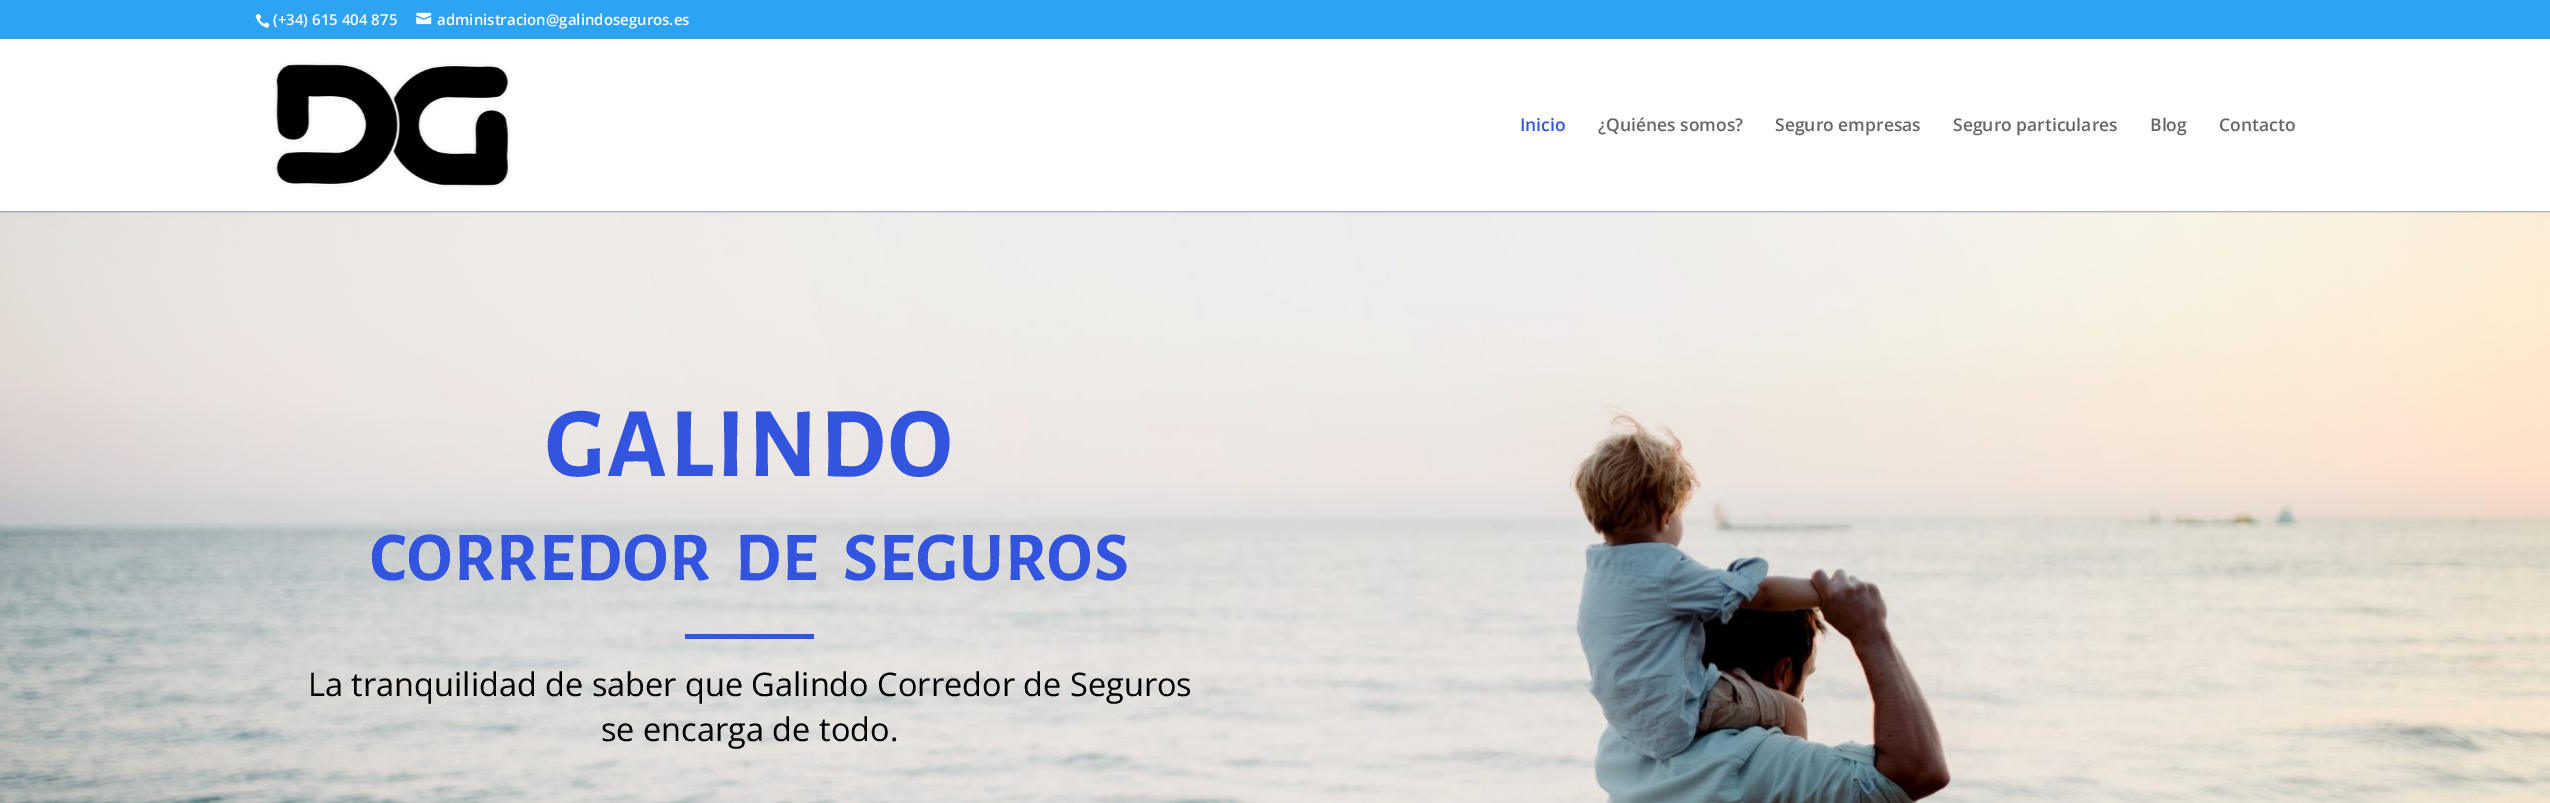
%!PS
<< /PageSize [2550 803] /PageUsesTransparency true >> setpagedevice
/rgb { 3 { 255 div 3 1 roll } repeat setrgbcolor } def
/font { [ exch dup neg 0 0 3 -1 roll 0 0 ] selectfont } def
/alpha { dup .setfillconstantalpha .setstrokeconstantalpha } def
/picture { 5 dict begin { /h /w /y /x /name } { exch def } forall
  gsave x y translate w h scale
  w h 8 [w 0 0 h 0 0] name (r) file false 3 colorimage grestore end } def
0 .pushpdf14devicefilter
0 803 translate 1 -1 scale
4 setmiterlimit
255 255 255 rgb
0 0 2550 803 rectfill
46 163 242 rgb
0 0 2550 39 rectfill
(img/1.rgb) 255 14 15 14 picture
(img/2.rgb) 416 12 16 13 picture
(img/4.rgb) 0 211 2550 592 picture
0.1 alpha
0 0 0 rgb
0 211 2550 2 rectfill
1 alpha
(img/3.rgb) 274 62 236 126 picture
50 84 223 rgb
685 634 129 5 rectfill
/OpenSans-SemiBold 15 font
255 255 255 rgb
273 25 moveto (\(+34\) 615 404 875) show
437 25 moveto (administracion@galindoseguros.es) show
/OpenSans-SemiBold 17.5 font
50 84 223 rgb
1520 131 moveto (Inicio) show
102 102 102 rgb
[
  [(¿Quiénes somos?) 1598 131]
  [(Seguro empresas) 1775 131]
  [(Seguro particulares) 1953 131]
  [(Blog) 2150 131]
  [(Contacto) 2219 131]
] { aload pop moveto show } forall
/AlegreyaSans-Bold 100 font
50 84 223 rgb
545 476 moveto 2.5 0 (GALINDO) ashow
/AlegreyaSans-Bold 70 font
370 580 moveto 1.25 0 (CORREDOR  DE  SEGUROS) ashow
/OpenSans-Regular 32.5 font
0 0 0 rgb
308 696 moveto (La tranquilidad de saber que Galindo Corredor de Seguros) show
601 741 moveto (se encarga de todo.) show
.poppdf14devicefilter showpage
